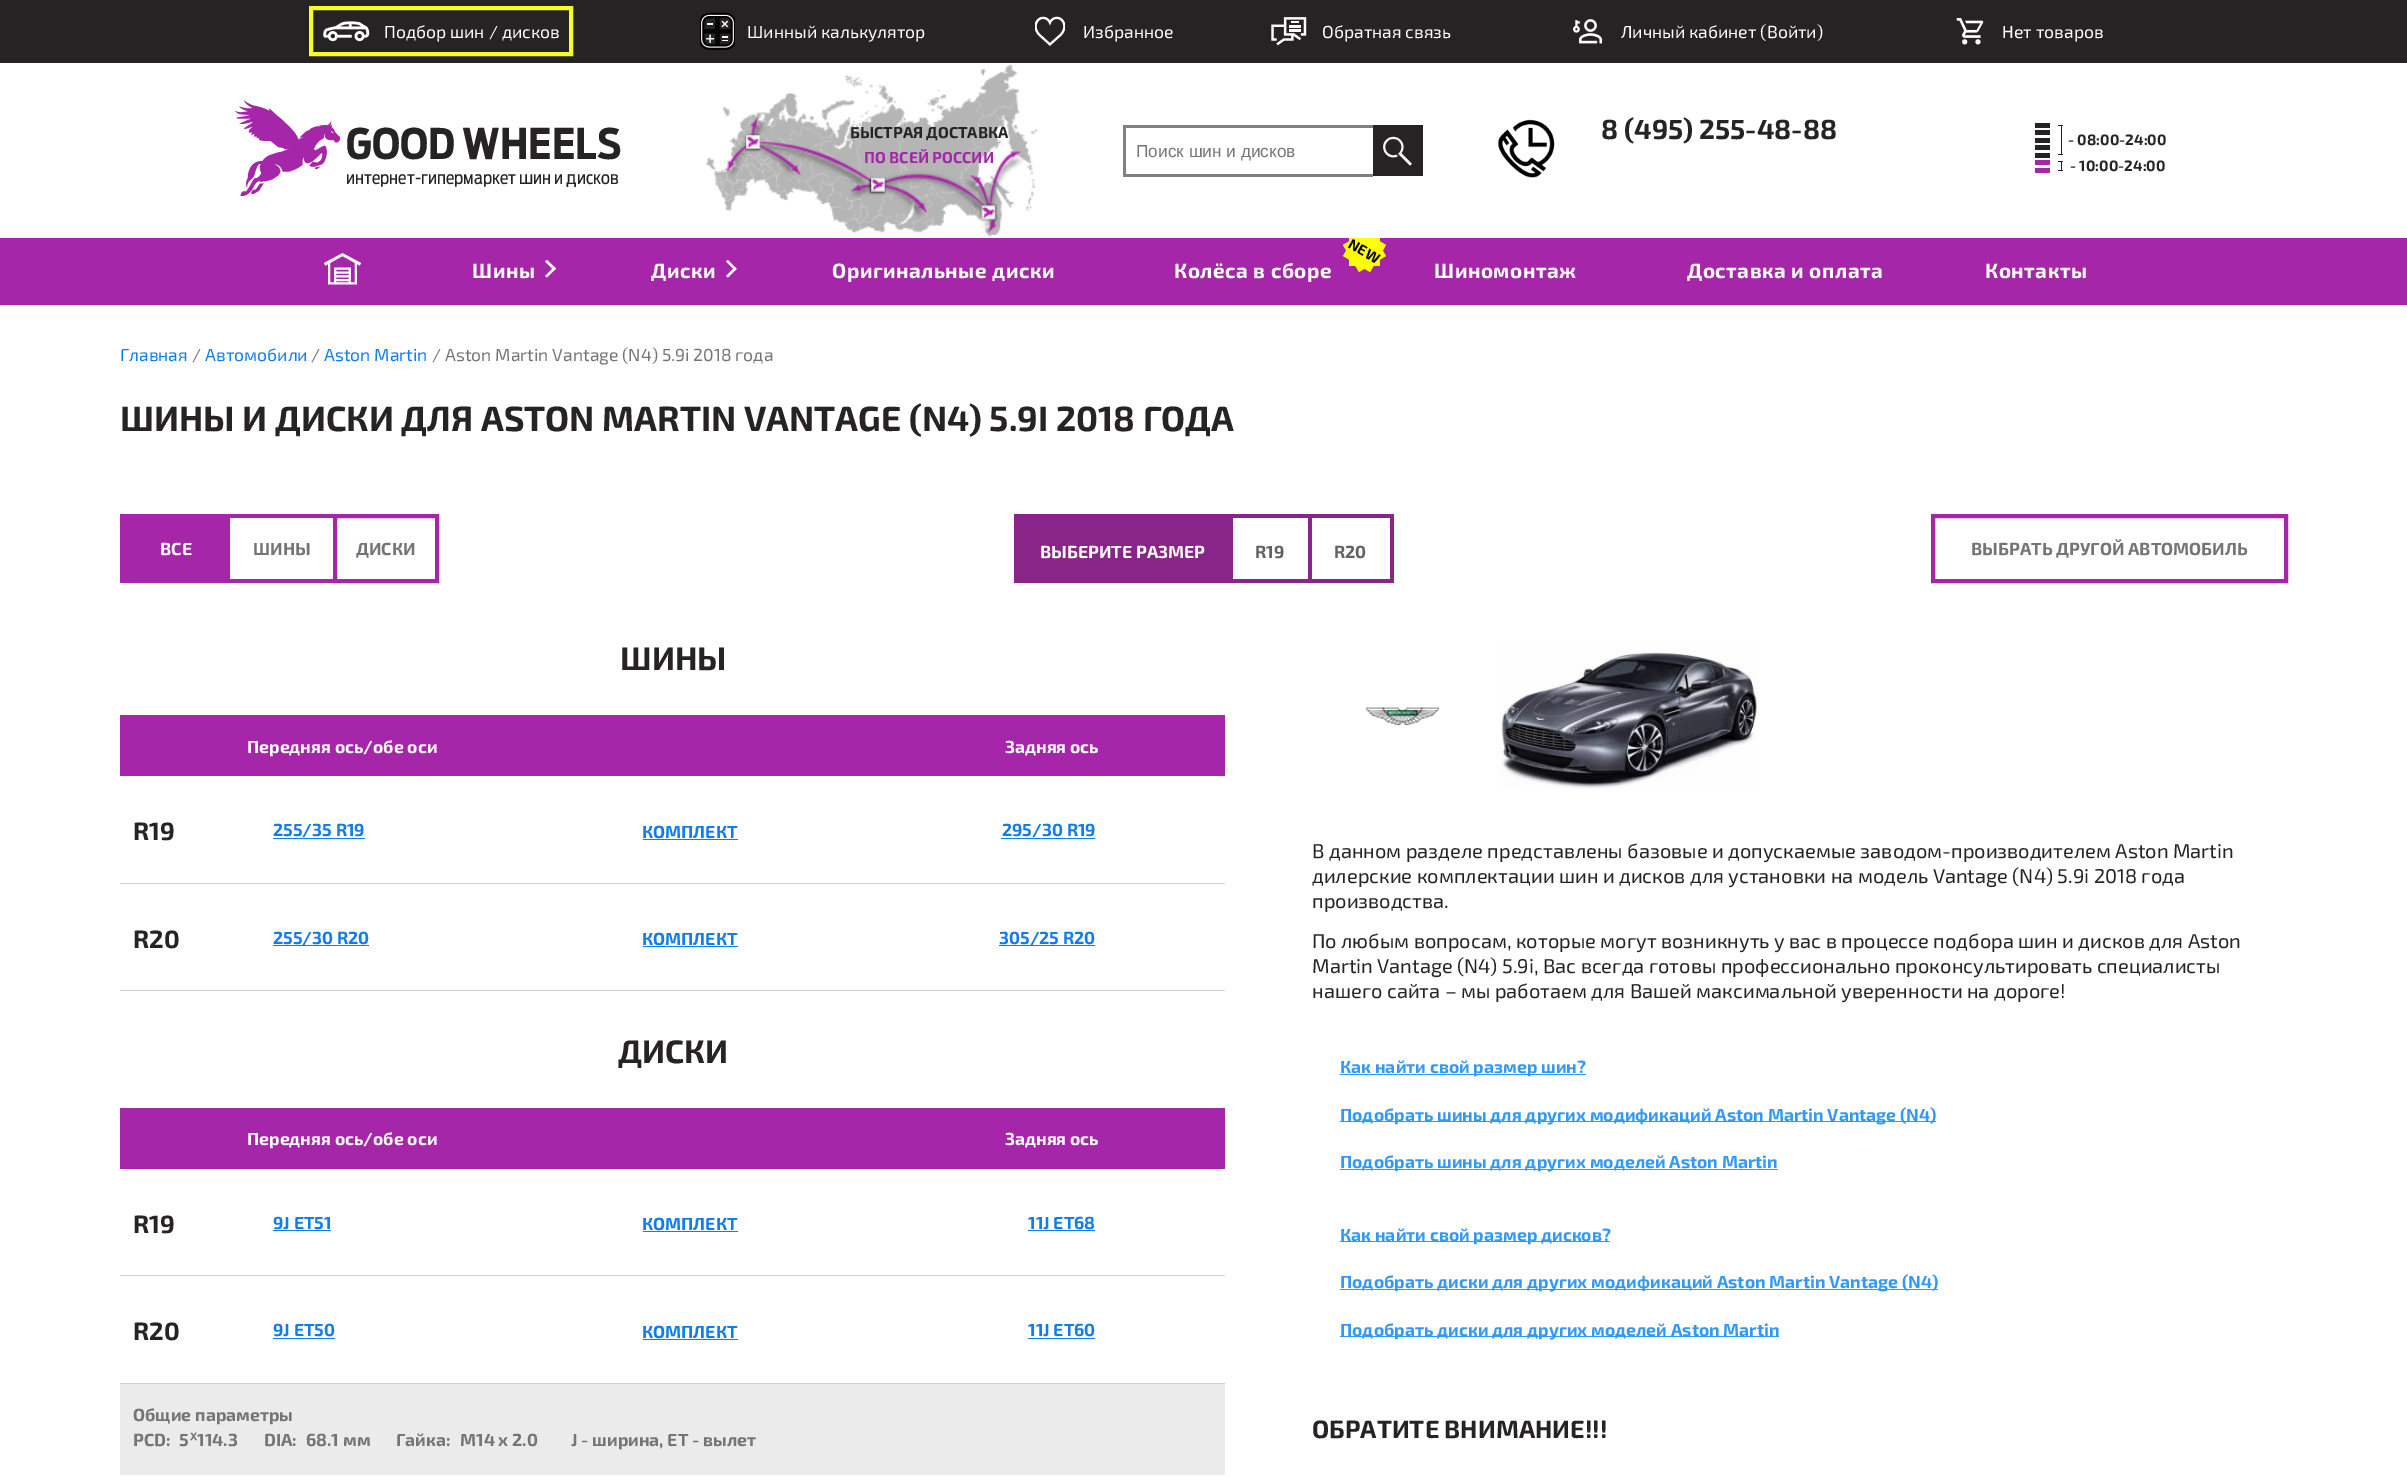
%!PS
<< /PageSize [2407 1477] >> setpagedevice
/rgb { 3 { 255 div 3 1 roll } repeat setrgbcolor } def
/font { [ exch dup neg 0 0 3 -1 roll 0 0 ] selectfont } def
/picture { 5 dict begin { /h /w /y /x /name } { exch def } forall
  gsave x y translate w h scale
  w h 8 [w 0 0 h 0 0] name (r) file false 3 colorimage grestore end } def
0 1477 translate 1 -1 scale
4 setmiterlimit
255 255 255 rgb
0 0 2407 1477 rectfill
38 35 36 rgb
0 0 2407 63 rectfill
247 255 35 rgb
4 setlinewidth
311 8 260 46 rectstroke
(img/1.rgb) 323 21 47 21 picture
(img/2.rgb) 700 12 35 38 picture
(img/3.rgb) 1035 16 30 30 picture
(img/4.rgb) 1271 17 36 29 picture
(img/5.rgb) 1573 19 29 25 picture
(img/6.rgb) 1956 18 28 27 picture
(img/7.rgb) 235 100 105 96 picture
(img/8.rgb) 705 64 333 173 picture
[
  [1123 125 250 3 128 128 128]
  [1123 174 250 3 128 128 128]
  [1123 125 3 51 128 128 128]
  [1373 125 50 51 38 35 36]
] { aload pop rgb rectfill } forall
(img/9.rgb) 1383 136 29 30 picture
(img/10.rgb) 1497 119 58 59 picture
[
  [2035 123 15 5 38 35 36]
  [2035 130 15 5 38 35 36]
  [2035 138 15 5 38 35 36]
  [2035 145 15 5 38 35 36]
  [2035 153 15 5 38 35 36]
  [2035 160 15 5 166 38 170]
  [2035 168 15 5 166 38 170]
  [2058 125 5 1 38 35 36]
  [2061 125 1 30 38 35 36]
  [2058 154 5 1 38 35 36]
  [2058 161 5 1 38 35 36]
  [2061 161 1 10 38 35 36]
  [2058 170 5 1 38 35 36]
  [0 238 2407 67 166 38 170]
] { aload pop rgb rectfill } forall
(img/11.rgb) 324 253 37 32 picture
255 255 255 rgb
545 261.5 moveto 547 260 lineto 556 268.5 lineto 554 270.5 lineto closepath fill
545 276 moveto 554 267 lineto 556 268.5 lineto 547 277.5 lineto closepath fill
726 261.5 moveto 728 260 lineto 736.5 269 lineto 735 270.5 lineto closepath fill
726 276 moveto 735 267 lineto 736.5 269 lineto 728 277.5 lineto closepath fill
255 255 0 rgb
1349 238 31 28 rectfill
gsave
0 238 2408 67 rectclip
1370 229 moveto 1386 256 lineto 1359 272 lineto 1343 245 lineto closepath fill
1359 229 moveto 1386 245 lineto 1370 272 lineto 1343 256 lineto closepath fill
grestore
[
  [120 514 106 69 166 38 170]
  [226 514 107 4 166 38 170]
  [226 579 107 4 166 38 170]
  [226 514 4 69 166 38 170]
] { aload pop rgb rectfill } forall
335 516 102 65 rectstroke
[
  [1014 514 219 69 137 36 136]
  [1233 514 78 4 137 36 136]
  [1308 514 4 69 137 36 136]
  [1233 579 78 4 137 36 136]
  [1311 514 83 4 137 36 136]
  [1390 514 4 69 137 36 136]
  [1311 579 83 4 137 36 136]
] { aload pop rgb rectfill } forall
166 38 170 rgb
1933 516 353 65 rectstroke
[
  [120 715 1105 61 166 38 170]
  [120 883 1105 1 210 210 210]
  [273 838 92 1 15 124 240]
  [1001 838 94 1 15 124 240]
  [643 839 95 1 15 124 240]
  [120 990 1105 1 210 210 210]
  [273 945 96 1 15 124 240]
  [999 945 96 1 15 124 240]
  [643 946 95 1 15 124 240]
  [120 1108 1105 61 166 38 170]
  [120 1275 1105 1 210 210 210]
  [273 1230 58 1 15 124 240]
  [1028 1230 67 1 15 124 240]
  [643 1231 95 1 15 124 240]
  [120 1383 1105 1 210 210 210]
  [273 1338 62 1 15 124 240]
  [1028 1338 67 1 15 124 240]
  [643 1339 95 1 15 124 240]
  [120 1384 1105 91 235 235 235]
] { aload pop rgb rectfill } forall
(img/12.rgb) 1366 707 73 18 picture
(img/13.rgb) 1496 643 263 146 picture
[
  [1340 1074 246 1 48 153 251]
  [1340 1121 596 1 48 153 251]
  [1340 1169 438 1 48 153 251]
  [1340 1241 270 1 48 153 251]
  [1340 1289 598 1 48 153 251]
  [1340 1336 439 1 48 153 251]
] { aload pop rgb rectfill } forall
/Exo2-Regular 17.5 font
255 255 255 rgb
[
  [(Подбор шин / дисков) 384 38]
  [(Шинный калькулятор) 747 38]
  [(Избранное) 1083 38]
  [(Обратная связь) 1322 38]
  [(Личный кабинет \(Войти\)) 1621 38]
  [(Нет товаров) 2002 38]
] { aload pop moveto show } forall
/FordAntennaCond-Bold 42 font
38 35 36 rgb
346 159 moveto (GOOD WHEELS) show
/FordAntennaCond-Regular 17.5 font
346 184 moveto (интернет-гипермаркет шин и дисков) show
/Exo2-Bold 15.75 font
850 138 moveto (БЫСТРАЯ ДОСТАВКА) show
166 38 170 rgb
864 163 moveto (ПО ВСЕЙ РОССИИ) show
/LiberationSans-Regular 17.25 font
117 117 117 rgb
1136 157 moveto (Поиск шин и дисков) show
/Exo2-Bold 27.5 font
38 35 36 rgb
1601 139 moveto (8 \(495\) 255-48-88) show
/Exo2-Bold 15 font
2068 145 moveto (- 08:00-24:00) show
2070 171 moveto (- 10:00-24:00) show
/Exo2-Bold 20.6 font
255 255 255 rgb
472 278 moveto 0.5 0 (Шины) ashow
651 278 moveto 0.5 0 (Диски) ashow
832 278 moveto 0.5 0 (Оригинальные диски) ashow
/Exo2-Bold 14.5 font
0 0 0 rgb
gsave 1347 247 translate 30 rotate 0 0 moveto 0.5 0 (NEW) ashow grestore
/Exo2-Bold 20.6 font
255 255 255 rgb
1174 278 moveto 0.5 0 (Колёса в сборе) ashow
1434 278 moveto 0.5 0 (Шиномонтаж) ashow
1687 278 moveto 0.5 0 (Доставка и оплата) ashow
1985 278 moveto 0.5 0 (Контакты) ashow
/Exo2-Regular 17.5 font
15 124 240 rgb
120 361 moveto (Главная) show
117 117 117 rgb
192 361 moveto (/) show
15 124 240 rgb
205 361 moveto (Автомобили) show
117 117 117 rgb
311 361 moveto (/) show
15 124 240 rgb
324 361 moveto (Aston Martin) show
117 117 117 rgb
432 361 moveto (/ Aston Martin Vantage \(N4\) 5.9i 2018 года) show
/Exo2-Bold 35 font
38 35 36 rgb
120 431 moveto (ШИНЫ И ДИСКИ ДЛЯ ASTON MARTIN VANTAGE \(N4\) 5.9I 2018 ГОДА) show
/Exo2-Bold 17.5 font
255 255 255 rgb
160 555 moveto (ВСЕ) show
117 117 117 rgb
253 555 moveto (ШИНЫ) show
356 555 moveto (ДИСКИ) show
255 255 255 rgb
1040 558 moveto (ВЫБЕРИТЕ РАЗМЕР) show
97 97 97 rgb
1255 558 moveto (R19) show
1334 558 moveto (R20) show
117 117 117 rgb
1971 555 moveto (ВЫБРАТЬ ДРУГОЙ АВТОМОБИЛЬ) show
/Exo2-Bold 32.5 font
38 35 36 rgb
620 670 moveto (ШИНЫ) show
/Exo2-Bold 17.5 font
255 255 255 rgb
247 753 moveto (Передняя ось/обе оси) show
1005 753 moveto (Задняя ось) show
/Exo2-Bold 25 font
38 35 36 rgb
133 840 moveto (R19) show
/Exo2-Bold 17.5 font
15 124 240 rgb
[
  [(255/35 R19) 273 836]
  [(295/30 R19) 1002 836]
  [(КОМПЛЕКТ) 642 838]
] { aload pop moveto show } forall
/Exo2-Bold 25 font
38 35 36 rgb
133 948 moveto (R20) show
/Exo2-Bold 17.5 font
15 124 240 rgb
[
  [(255/30 R20) 273 944]
  [(305/25 R20) 999 944]
  [(КОМПЛЕКТ) 642 945]
] { aload pop moveto show } forall
/Exo2-Bold 32.5 font
38 35 36 rgb
618 1063 moveto (ДИСКИ) show
/Exo2-Bold 17.5 font
255 255 255 rgb
247 1145 moveto (Передняя ось/обе оси) show
1005 1145 moveto (Задняя ось) show
/Exo2-Bold 25 font
38 35 36 rgb
133 1233 moveto (R19) show
/Exo2-Bold 17.5 font
15 124 240 rgb
[
  [(9J ET51) 273 1229]
  [(11J ET68) 1028 1229]
  [(КОМПЛЕКТ) 642 1230]
] { aload pop moveto show } forall
/Exo2-Bold 25 font
38 35 36 rgb
133 1340 moveto (R20) show
/Exo2-Bold 17.5 font
15 124 240 rgb
[
  [(9J ET50) 273 1336]
  [(11J ET60) 1028 1336]
  [(КОМПЛЕКТ) 642 1338]
] { aload pop moveto show } forall
117 117 117 rgb
[
  [(Общие параметры) 133 1421]
  [(PCD:) 133 1446]
  [(5) 179 1446]
] { aload pop moveto show } forall
/DejaVuSans-Bold 17.5 font
189 1446 moveto (ᕁ) show
/Exo2-Bold 17.5 font
[
  [(114.3) 197 1446]
  [(DIA:) 264 1446]
  [(68.1 мм) 306 1446]
  [(Гайка:) 396 1446]
  [(M14 x 2.0) 460 1446]
  [(J - ширина, ET - вылет) 571 1446]
] { aload pop moveto show } forall
/Exo2-Regular 20 font
38 35 36 rgb
[
  [(В данном разделе представлены базовые и допускаемые заводом-производителем Aston Martin) 1312 858]
  [(дилерские комплектации шин и дисков для установки на модель Vantage \(N4\) 5.9i 2018 года) 1312 883]
  [(производства.) 1312 908]
  [(По любым вопросам, которые могут возникнуть у вас в процессе подбора шин и дисков для Aston) 1312 948]
  [(Martin Vantage \(N4\) 5.9i, Вас всегда готовы профессионально проконсультировать специалисты) 1312 973]
  [(нашего сайта – мы работаем для Вашей максимальной уверенности на дороге!) 1312 998]
] { aload pop moveto show } forall
/Exo2-Bold 17.5 font
48 153 251 rgb
[
  [(Как найти свой размер шин?) 1340 1073]
  [(Подобрать шины для других модификаций Aston Martin Vantage \(N4\)) 1340 1121]
  [(Подобрать шины для других моделей Aston Martin) 1340 1168]
  [(Как найти свой размер дисков?) 1340 1241]
  [(Подобрать диски для других модификаций Aston Martin Vantage \(N4\)) 1340 1288]
  [(Подобрать диски для других моделей Aston Martin) 1340 1336]
] { aload pop moveto show } forall
/Exo2-Bold 25 font
38 35 36 rgb
1312 1438 moveto (ОБРАТИТЕ ВНИМАНИЕ!!!) show
showpage
